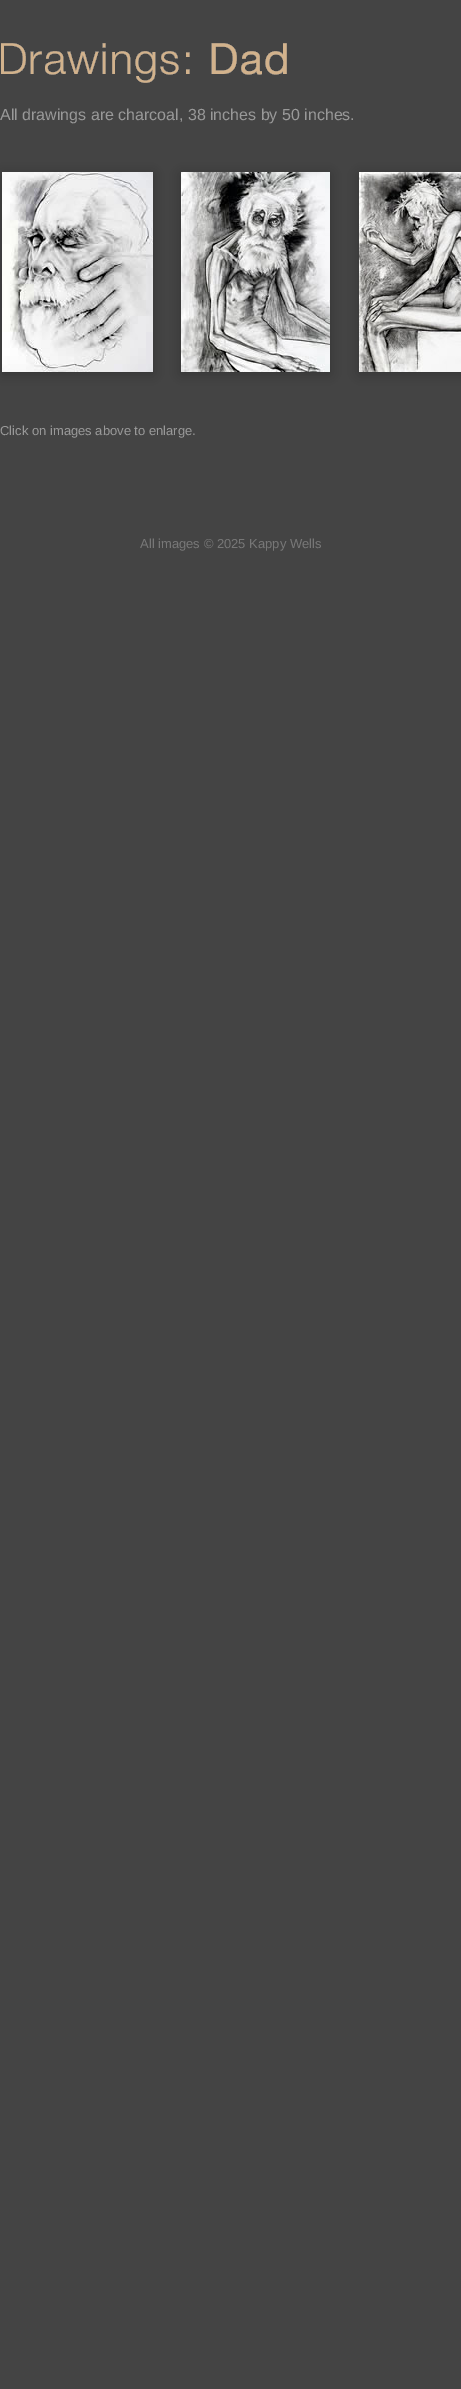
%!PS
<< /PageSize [461 2389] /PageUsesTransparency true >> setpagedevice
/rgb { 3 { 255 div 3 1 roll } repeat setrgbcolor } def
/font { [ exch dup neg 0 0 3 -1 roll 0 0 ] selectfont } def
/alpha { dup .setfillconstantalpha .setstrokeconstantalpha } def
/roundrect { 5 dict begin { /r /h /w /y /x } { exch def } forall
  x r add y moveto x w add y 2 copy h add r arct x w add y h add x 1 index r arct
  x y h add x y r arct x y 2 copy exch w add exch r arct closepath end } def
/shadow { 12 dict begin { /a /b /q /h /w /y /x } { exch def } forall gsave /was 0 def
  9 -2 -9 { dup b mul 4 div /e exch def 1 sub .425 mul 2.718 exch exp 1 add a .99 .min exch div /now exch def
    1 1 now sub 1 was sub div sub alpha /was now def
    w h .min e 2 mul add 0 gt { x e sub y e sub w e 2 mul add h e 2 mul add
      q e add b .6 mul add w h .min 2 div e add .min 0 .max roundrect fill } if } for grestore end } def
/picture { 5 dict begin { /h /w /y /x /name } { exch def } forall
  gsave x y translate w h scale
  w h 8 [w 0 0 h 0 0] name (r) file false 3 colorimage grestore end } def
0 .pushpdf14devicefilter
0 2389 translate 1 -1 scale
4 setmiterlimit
68 68 68 rgb
0 0 461 2389 rectfill
(img/1.rgb) 1 43 286 40 picture
51 51 51 rgb
2 174 151 200 0 5.5 1 shadow
181 174 149 200 0 5.5 1 shadow
359 174 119 200 0 5.5 1 shadow
(img/2.rgb) 2 172 151 200 picture
(img/3.rgb) 181 172 149 200 picture
(img/4.rgb) 359 172 102 200 picture
/LiberationSans-Regular 16 font
153 153 153 rgb
0 120 moveto (All drawings are charcoal, 38 inches by 50 inches.) show
/LiberationSans-Regular 13 font
0 435 moveto (Click on images above to enlarge.) show
119 119 119 rgb
140 548 moveto (All images © 2025 Kappy Wells) show
.poppdf14devicefilter showpage
